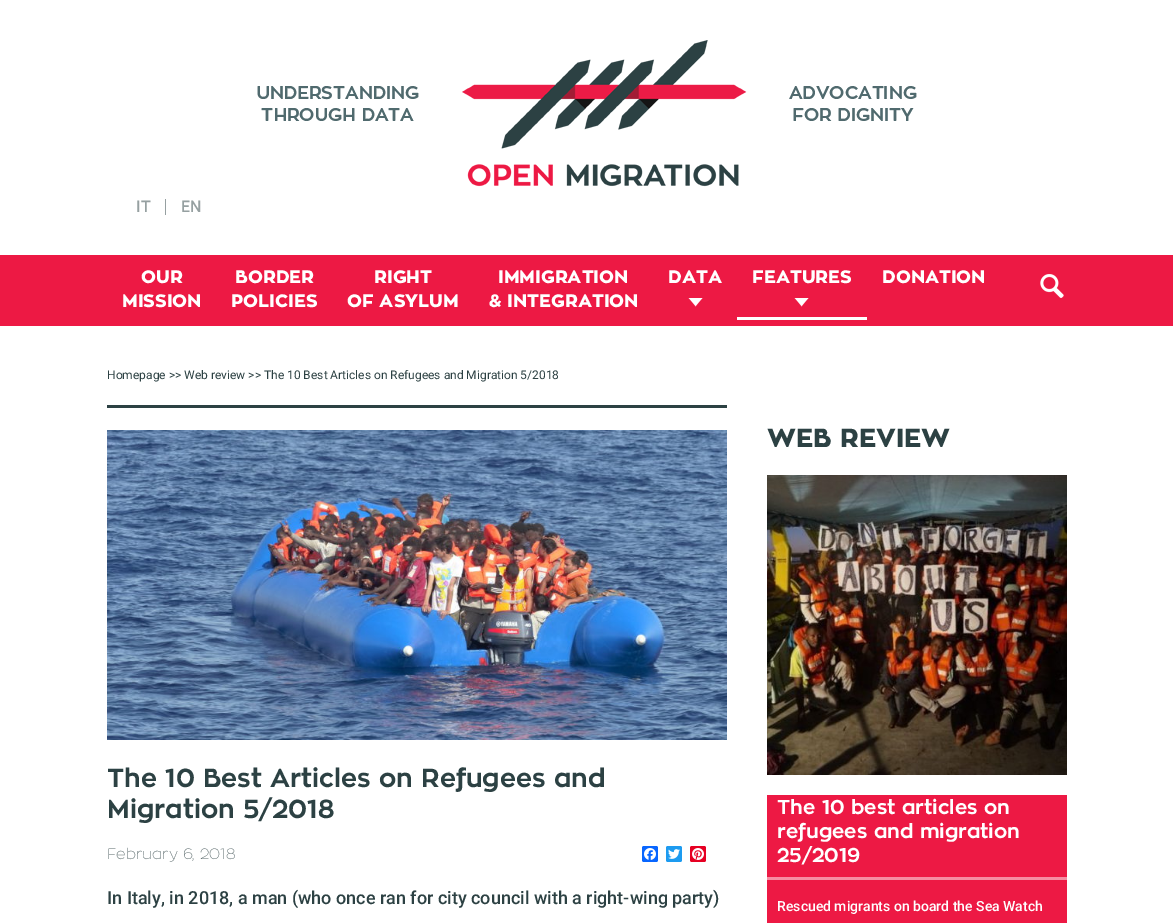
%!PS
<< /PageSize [1173 923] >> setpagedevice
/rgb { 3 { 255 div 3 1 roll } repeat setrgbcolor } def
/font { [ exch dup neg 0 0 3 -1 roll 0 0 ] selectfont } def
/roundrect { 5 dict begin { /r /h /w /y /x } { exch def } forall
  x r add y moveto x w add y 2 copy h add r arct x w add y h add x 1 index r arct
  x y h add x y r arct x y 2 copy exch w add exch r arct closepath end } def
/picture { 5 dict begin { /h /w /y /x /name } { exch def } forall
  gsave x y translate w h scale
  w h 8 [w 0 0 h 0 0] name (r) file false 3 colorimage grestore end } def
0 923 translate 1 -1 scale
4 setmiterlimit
255 255 255 rgb
0 0 1173 923 rectfill
(img/1.rgb) 257 40 660 147 picture
150 160 161 rgb
165 199 1 16 rectfill
237 25 68 rgb
0 255 1173 71 rectfill
(img/2.rgb) 688 298 15 9 picture
255 255 255 rgb
737 317 130 3 rectfill
(img/2.rgb) 794 298 15 9 picture
(img/3.rgb) 1040 274 24 24 picture
44 65 67 rgb
107 405 620 3 rectfill
(img/4.rgb) 107 430 620 310 picture
8 102 255 rgb
642 846 16 16 2 roundrect fill
(img/5.rgb) 644 848 12 12 picture
29 155 240 rgb
666 846 16 16 2 roundrect fill
(img/6.rgb) 668 849 12 10 picture
230 0 35 rgb
690 846 16 16 2 roundrect fill
(img/7.rgb) 692 848 12 12 picture
(img/8.rgb) 767 475 300 300 picture
237 25 68 rgb
767 795 300 128 rectfill
246 140 162 rgb
767 877 300 3 rectfill
/Roboto-Medium 16 font
150 160 161 rgb
136 212 moveto (IT) show
181 212 moveto (EN) show
/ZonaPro-ExtraBold 18 font
255 255 255 rgb
[
  [(OUR) 141 283]
  [(MISSION) 122 307]
  [(BORDER) 235 283]
  [(POLICIES) 231 307]
  [(RIGHT) 374 283]
  [(OF ASYLUM) 347 307]
  [(IMMIGRATION) 498 283]
  [(& INTEGRATION) 489 307]
  [(DATA) 668 283]
  [(FEATURES) 752 283]
  [(DONATION) 882 283]
] { aload pop moveto show } forall
/Roboto-Regular 12 font
44 65 67 rgb
107 379 moveto (Homepage >> Web review >> The 10 Best Articles on Refugees and Migration 5/2018) show
/ZonaPro-Bold 26 font
107 787 moveto (The 10 Best Articles on Refugees and) show
107 818 moveto (Migration 5/2018) show
/ZonaPro-Thin 15 font
97 112 114 rgb
107 859 moveto (February 6, 2018) show
/Roboto-Medium 18 font
44 65 67 rgb
107 904 moveto (In Italy, in 2018, a man \(who once ran for city council with a right-wing party\)) show
/ZonaPro-ExtraBold 26 font
767 447 moveto (WEB REVIEW) show
/ZonaPro-Bold 20 font
255 255 255 rgb
[
  [(The 10 best articles on) 777 814]
  [(refugees and migration) 777 838]
  [(25/2019) 777 862]
] { aload pop moveto show } forall
/Roboto-Medium 14 font
777 911 moveto (Rescued migrants on board the Sea Watch) show
showpage
